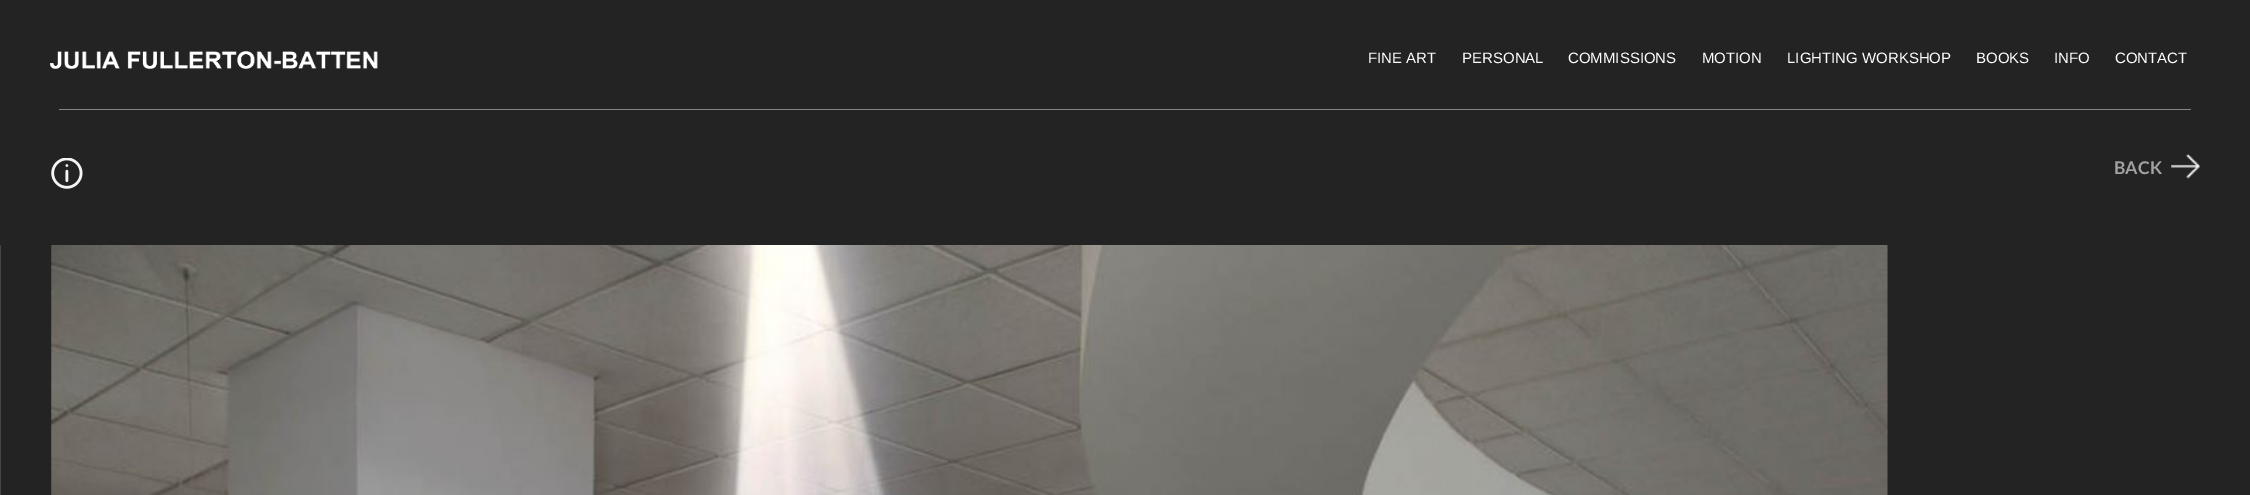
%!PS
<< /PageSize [2250 495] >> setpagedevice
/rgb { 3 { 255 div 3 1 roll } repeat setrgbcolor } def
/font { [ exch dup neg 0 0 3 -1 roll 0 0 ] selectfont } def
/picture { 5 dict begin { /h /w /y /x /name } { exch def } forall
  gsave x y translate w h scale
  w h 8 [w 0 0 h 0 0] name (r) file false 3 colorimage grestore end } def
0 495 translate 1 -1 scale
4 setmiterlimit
35 35 35 rgb
0 0 2250 495 rectfill
(img/1.rgb) 50 51 328 18 picture
132 132 132 rgb
59 109 2132 1 rectfill
(img/2.rgb) 2171 153 29 26 picture
68 68 68 rgb
0 245 1 250 rectfill
(img/3.rgb) 51 158 32 31 picture
(img/4.rgb) 51 245 1837 250 picture
/LiberationSans-Regular 15 font
255 255 255 rgb
[
  [(FINE ART) 1368 63]
  [(PERSONAL) 1462 63]
  [(COMMISSIONS) 1568 63]
  [(MOTION) 1702 63]
  [(LIGHTING WORKSHOP) 1787 63]
  [(BOOKS) 1976 63]
  [(INFO) 2054 63]
  [(CONTACT) 2115 63]
] { aload pop moveto show } forall
/Lato-Bold 17.5 font
161 161 161 rgb
2114 174 moveto (BACK) show
showpage
